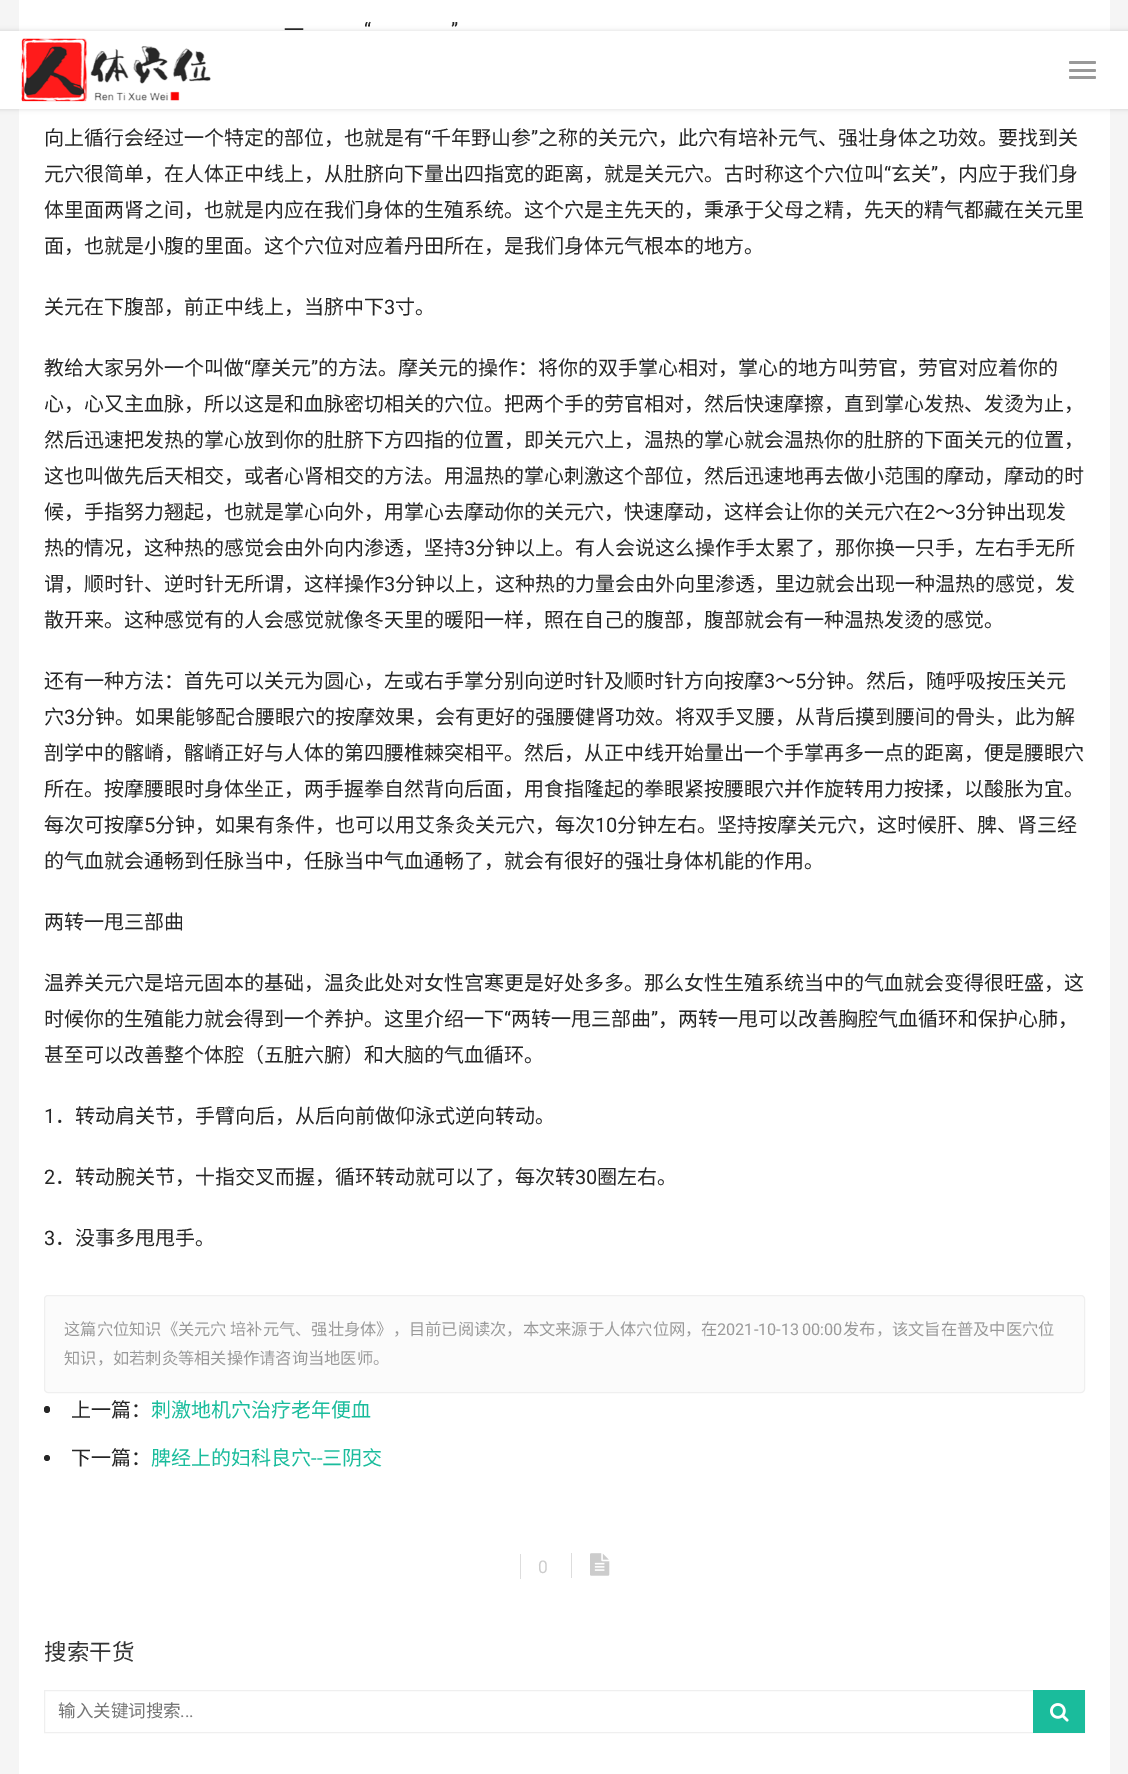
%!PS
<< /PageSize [1128 1774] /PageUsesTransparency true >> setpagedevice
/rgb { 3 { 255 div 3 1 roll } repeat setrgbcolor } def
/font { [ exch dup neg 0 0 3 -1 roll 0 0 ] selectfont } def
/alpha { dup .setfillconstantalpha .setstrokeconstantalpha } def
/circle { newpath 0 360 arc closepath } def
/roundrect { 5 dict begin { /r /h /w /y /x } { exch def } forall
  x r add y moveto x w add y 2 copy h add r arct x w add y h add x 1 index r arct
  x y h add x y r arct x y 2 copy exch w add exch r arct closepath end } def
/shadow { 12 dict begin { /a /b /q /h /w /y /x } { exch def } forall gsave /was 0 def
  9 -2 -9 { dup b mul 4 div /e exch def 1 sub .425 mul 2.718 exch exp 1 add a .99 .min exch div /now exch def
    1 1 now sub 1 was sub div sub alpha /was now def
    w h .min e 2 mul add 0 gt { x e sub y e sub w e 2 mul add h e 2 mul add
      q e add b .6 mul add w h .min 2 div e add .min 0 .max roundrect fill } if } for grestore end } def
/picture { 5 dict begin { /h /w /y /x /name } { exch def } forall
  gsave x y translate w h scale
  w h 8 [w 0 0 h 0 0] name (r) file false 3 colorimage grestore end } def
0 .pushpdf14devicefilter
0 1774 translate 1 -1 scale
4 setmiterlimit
245 245 245 rgb
0 0 1128 1774 rectfill
255 255 255 rgb
19 0 1091 1774 rectfill
251 251 251 rgb
44.5 1295.5 1040 97 3.5 roundrect gsave fill grestore
239 239 239 rgb
stroke
38 38 38 rgb
44 1406 6 7 3 roundrect fill
47 1458 3 circle fill
221 221 221 rgb
520 1554 1 25 rectfill
571 1553 1 25 rectfill
(img/1.rgb) 590 1553 20 23 picture
239 239 239 rgb
44.5 1690.5 1040 42 rectstroke
26 188 156 rgb
1033 1690 52 43 rectfill
(img/2.rgb) 1050 1703 19 19 picture
0 0 0 rgb
-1 30 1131 80 0 2 0.1 shadow
255 255 255 rgb
0 31 1128 78 rectfill
(img/3.rgb) 20 38 191 64 picture
153 153 153 rgb
1069 61 27 3 1.5 roundrect fill
1069 69 27 3 1.5 roundrect fill
1069 76 27 3 1.5 roundrect fill
/Roboto-Regular 20 font
38 38 38 rgb
364 37 moveto (“) show
451 37 moveto (”) show
/NotoSansCJKSC-Regular 20 font
284 37 moveto (一) show
44 145 moveto (向上循行会经过一个特定的部位，也就是有) show
/Roboto-Regular 20 font
424 145 moveto (“) show
/NotoSansCJKSC-Regular 20 font
431 145 moveto (千年野山参) show
/Roboto-Regular 20 font
531 145 moveto (”) show
/NotoSansCJKSC-Regular 20 font
538 145 moveto (之称的关元穴，此穴有培补元气、强壮身体之功效。要找到关) show
44 181 moveto (元穴很简单，在人体正中线上，从肚脐向下量出四指宽的距离，就是关元穴。古时称这个穴位叫) show
/Roboto-Regular 20 font
884 181 moveto (“) show
/NotoSansCJKSC-Regular 20 font
891 181 moveto (玄关) show
/Roboto-Regular 20 font
931 181 moveto (”) show
/NotoSansCJKSC-Regular 20 font
[
  [(，内应于我们身) 938 181]
  [(体里面两肾之间，也就是内应在我们身体的生殖系统。这个穴是主先天的，秉承于父母之精，先天的精气都藏在关元里) 44 217]
  [(面，也就是小腹的里面。这个穴位对应着丹田所在，是我们身体元气根本的地方。) 44 253]
  [(关元在下腹部，前正中线上，当脐中下) 44 314]
] { aload pop moveto show } forall
/Roboto-Regular 20 font
384 314 moveto (3) show
/NotoSansCJKSC-Regular 20 font
395 314 moveto (寸。) show
44 375 moveto (教给大家另外一个叫做) show
/Roboto-Regular 20 font
244 375 moveto (“) show
/NotoSansCJKSC-Regular 20 font
251 375 moveto (摩关元) show
/Roboto-Regular 20 font
311 375 moveto (”) show
/NotoSansCJKSC-Regular 20 font
[
  [(的方法。摩关元的操作：将你的双手掌心相对，掌心的地方叫劳官，劳官对应着你的) 318 375]
  [(心，心又主血脉，所以这是和血脉密切相关的穴位。把两个手的劳官相对，然后快速摩擦，直到掌心发热、发烫为止，) 44 411]
  [(然后迅速把发热的掌心放到你的肚脐下方四指的位置，即关元穴上，温热的掌心就会温热你的肚脐的下面关元的位置，) 44 447]
  [(这也叫做先后天相交，或者心肾相交的方法。用温热的掌心刺激这个部位，然后迅速地再去做小范围的摩动，摩动的时) 44 483]
  [(候，手指努力翘起，也就是掌心向外，用掌心去摩动你的关元穴，快速摩动，这样会让你的关元穴在) 44 519]
] { aload pop moveto show } forall
/Roboto-Regular 20 font
924 519 moveto (2) show
/NotoSansCJKSC-Regular 20 font
935 519 moveto (～) show
/Roboto-Regular 20 font
955 519 moveto (3) show
/NotoSansCJKSC-Regular 20 font
966 519 moveto (分钟出现发) show
44 555 moveto (热的情况，这种热的感觉会由外向内渗透，坚持) show
/Roboto-Regular 20 font
464 555 moveto (3) show
/NotoSansCJKSC-Regular 20 font
475 555 moveto (分钟以上。有人会说这么操作手太累了，那你换一只手，左右手无所) show
44 591 moveto (谓，顺时针、逆时针无所谓，这样操作) show
/Roboto-Regular 20 font
384 591 moveto (3) show
/NotoSansCJKSC-Regular 20 font
[
  [(分钟以上，这种热的力量会由外向里渗透，里边就会出现一种温热的感觉，发) 395 591]
  [(散开来。这种感觉有的人会感觉就像冬天里的暖阳一样，照在自己的腹部，腹部就会有一种温热发烫的感觉。) 44 627]
  [(还有一种方法：首先可以关元为圆心，左或右手掌分别向逆时针及顺时针方向按摩) 44 688]
] { aload pop moveto show } forall
/Roboto-Regular 20 font
764 688 moveto (3) show
/NotoSansCJKSC-Regular 20 font
775 688 moveto (～) show
/Roboto-Regular 20 font
795 688 moveto (5) show
/NotoSansCJKSC-Regular 20 font
806 688 moveto (分钟。然后，随呼吸按压关元) show
44 724 moveto (穴) show
/Roboto-Regular 20 font
64 724 moveto (3) show
/NotoSansCJKSC-Regular 20 font
[
  [(分钟。如果能够配合腰眼穴的按摩效果，会有更好的强腰健肾功效。将双手叉腰，从背后摸到腰间的骨头，此为解) 75 724]
  [(剖学中的髂嵴，髂嵴正好与人体的第四腰椎棘突相平。然后，从正中线开始量出一个手掌再多一点的距离，便是腰眼穴) 44 760]
  [(所在。按摩腰眼时身体坐正，两手握拳自然背向后面，用食指隆起的拳眼紧按腰眼穴并作旋转用力按揉，以酸胀为宜。) 44 796]
  [(每次可按摩) 44 832]
] { aload pop moveto show } forall
/Roboto-Regular 20 font
144 832 moveto (5) show
/NotoSansCJKSC-Regular 20 font
155 832 moveto (分钟，如果有条件，也可以用艾条灸关元穴，每次) show
/Roboto-Regular 20 font
595 832 moveto (10) show
/NotoSansCJKSC-Regular 20 font
[
  [(分钟左右。坚持按摩关元穴，这时候肝、脾、肾三经) 617 832]
  [(的气血就会通畅到任脉当中，任脉当中气血通畅了，就会有很好的强壮身体机能的作用。) 44 868]
  [(两转一甩三部曲) 44 929]
  [(温养关元穴是培元固本的基础，温灸此处对女性宫寒更是好处多多。那么女性生殖系统当中的气血就会变得很旺盛，这) 44 990]
  [(时候你的生殖能力就会得到一个养护。这里介绍一下) 44 1026]
] { aload pop moveto show } forall
/Roboto-Regular 20 font
504 1026 moveto (“) show
/NotoSansCJKSC-Regular 20 font
511 1026 moveto (两转一甩三部曲) show
/Roboto-Regular 20 font
651 1026 moveto (”) show
/NotoSansCJKSC-Regular 20 font
658 1026 moveto (，两转一甩可以改善胸腔气血循环和保护心肺，) show
44 1062 moveto (甚至可以改善整个体腔（五脏六腑）和大脑的气血循环。) show
/Roboto-Regular 20 font
44 1123 moveto (1) show
/NotoSansCJKSC-Regular 20 font
55 1123 moveto (．转动肩关节，手臂向后，从后向前做仰泳式逆向转动。) show
/Roboto-Regular 20 font
44 1184 moveto (2) show
/NotoSansCJKSC-Regular 20 font
55 1184 moveto (．转动腕关节，十指交叉而握，循环转动就可以了，每次转) show
/Roboto-Regular 20 font
575 1184 moveto (30) show
/NotoSansCJKSC-Regular 20 font
597 1184 moveto (圈左右。) show
/Roboto-Regular 20 font
44 1245 moveto (3) show
/NotoSansCJKSC-Regular 20 font
55 1245 moveto (．没事多甩甩手。) show
/NotoSansCJKSC-Regular 16.25 font
153 153 153 rgb
64 1335 moveto (这篇穴位知识《关元穴 培补元气、强壮身体》，目前已阅读) show
490 1335 moveto (次，本文来源于人体穴位网，在) show
/Roboto-Regular 16.25 font
717 1335 moveto -1 0 32 (2021-10-13 00:00) widthshow
/NotoSansCJKSC-Regular 16.25 font
843 1335 moveto (发布，该文旨在普及中医穴位) show
64 1364 moveto (知识，如若刺灸等相关操作请咨询当地医师。) show
/NotoSansCJKSC-Regular 20 font
38 38 38 rgb
71 1417 moveto (上一篇：) show
26 188 156 rgb
151 1417 moveto (刺激地机穴治疗老年便血) show
38 38 38 rgb
71 1465 moveto (下一篇：) show
26 188 156 rgb
151 1465 moveto (脾经上的妇科良穴) show
/Roboto-Regular 20 font
311 1465 moveto (--) show
/NotoSansCJKSC-Regular 20 font
322 1465 moveto (三阴交) show
/Roboto-Regular 17.5 font
204 204 204 rgb
538 1573 moveto (0) show
/NotoSansCJKSC-Regular 22.5 font
51 51 51 rgb
44 1660 moveto (搜索干货) show
/NotoSansCJKSC-Regular 17.5 font
117 117 117 rgb
58 1717 moveto (输入关键词搜索) show
/Roboto-Regular 17.5 font
180 1717 moveto (...) show
.poppdf14devicefilter showpage
